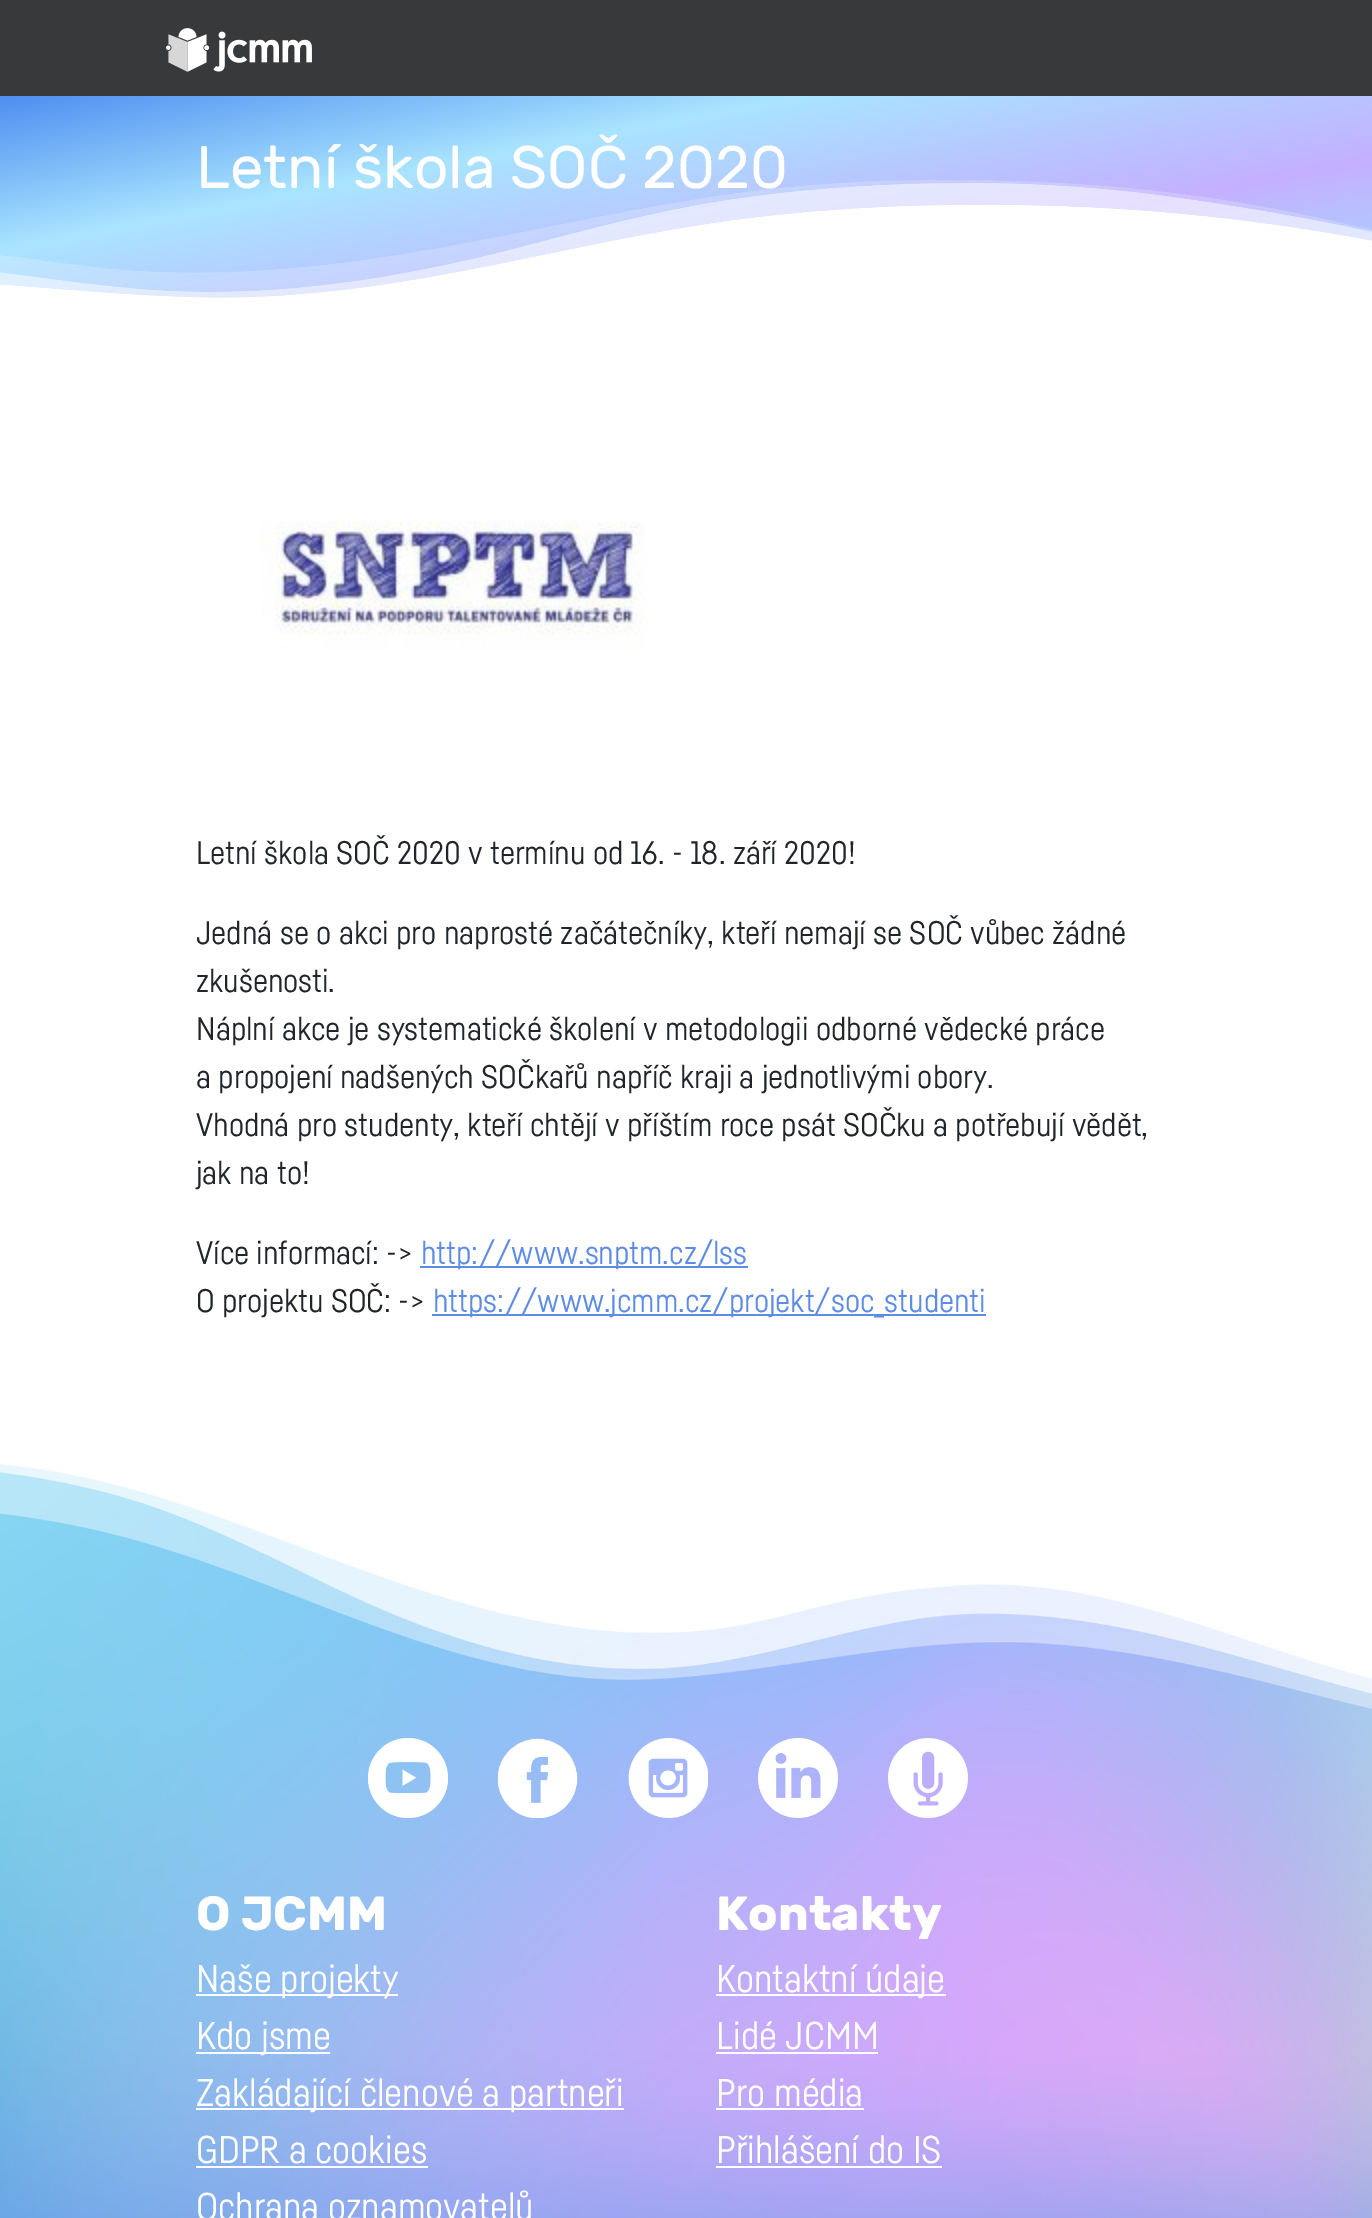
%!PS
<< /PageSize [1372 2218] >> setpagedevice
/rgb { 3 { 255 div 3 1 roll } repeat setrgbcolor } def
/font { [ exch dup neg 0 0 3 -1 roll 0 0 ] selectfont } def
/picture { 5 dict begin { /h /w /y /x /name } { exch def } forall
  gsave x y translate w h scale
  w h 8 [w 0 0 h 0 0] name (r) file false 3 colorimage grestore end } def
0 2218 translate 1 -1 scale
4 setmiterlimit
255 255 255 rgb
0 0 1372 2218 rectfill
56 57 58 rgb
0 0 1372 96 rectfill
(img/1.rgb) 166 28 146 44 picture
gsave 0 96 moveto 1372 96 lineto 1372 298 lineto 0 298 lineto closepath clip newpath
<< /ShadingType 2 /ColorSpace /DeviceRGB /Coords [638 -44 734 454] /Extend [true true] /Function << /FunctionType 3 /Domain [0 1] /Functions [<< /FunctionType 2 /Domain [0 1] /C0 [0.267 0.522 0.937] /C1 [0.663 0.894 1] /N 1 >> << /FunctionType 2 /Domain [0 1] /C0 [0.663 0.894 1] /C1 [0.769 0.69 1] /N 1 >> << /FunctionType 2 /Domain [0 1] /C0 [0.769 0.69 1] /C1 [0.6 0.898 0.984] /N 1 >>] /Bounds [0.33 0.67] /Encode [0 1 0 1 0 1] >> >> shfill grestore
(img/2.rgb) 0 180 1372 150 picture
(img/3.rgb) 260 521 385 129 picture
93 140 230 rgb
420 1266 328 2 rectfill
432 1314 554 2 rectfill
(img/4.rgb) 0 1464 1372 754 picture
(img/5.rgb) 368 1738 80 80 picture
(img/6.rgb) 498 1738 80 80 picture
(img/7.rgb) 628 1738 80 80 picture
(img/8.rgb) 758 1738 80 80 picture
(img/9.rgb) 888 1738 80 80 picture
[
  [196 1994 202 2 255 255 255]
  [196 2052 134 2 255 255 255]
  [196 2108 428 2 255 255 255]
  [196 2166 232 2 255 255 255]
  [716 1994 230 2 255 255 255]
  [716 2052 162 2 255 255 255]
  [716 2108 148 2 255 255 255]
  [716 2166 226 2 255 255 255]
] { aload pop rgb rectfill } forall
/rubik-Regular 60 font
196 188 moveto (Letní škola SOČ 2020) show
/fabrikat-Regular 32 font
33 37 41 rgb
[
  [(Letní škola SOČ 2020 v termínu od 16. - 18. září 2020!) 196 864]
  [(Jedná se o akci pro naprosté začátečníky, kteří nemají se SOČ vůbec žádné) 196 944]
  [(zkušenosti.) 196 992]
  [(Náplní akce je systematické školení v metodologii odborné vědecké práce) 196 1040]
  [(a propojení nadšených SOČkařů napříč kraji a jednotlivými obory.) 196 1088]
  [(Vhodná pro studenty, kteří chtějí v příštím roce psát SOČku a potřebují vědět,) 196 1136]
  [(jak na to!) 196 1184]
  [(Více informací: ->) 196 1264]
] { aload pop moveto show } forall
93 140 230 rgb
421 1264 moveto (http://www.snptm.cz/lss) show
33 37 41 rgb
196 1312 moveto (O projektu SOČ: ->) show
93 140 230 rgb
433 1312 moveto (https://www.jcmm.cz/projekt/soc_studenti) show
/rubik-Bold 48 font
255 255 255 rgb
196 1930 moveto (O JCMM) show
/fabrikat-Regular 38 font
[
  [(Naše projekty) 196 1992]
  [(Kdo jsme) 196 2049]
  [(Zakládající členové a partneři) 196 2106]
  [(GDPR a cookies) 196 2163]
  [(Ochrana oznamovatelů) 196 2220]
] { aload pop moveto show } forall
/rubik-Bold 48 font
716 1930 moveto (Kontakty) show
/fabrikat-Regular 38 font
[
  [(Kontaktní údaje) 716 1992]
  [(Lidé JCMM) 716 2049]
  [(Pro média) 716 2106]
  [(Přihlášení do IS) 716 2163]
] { aload pop moveto show } forall
showpage
